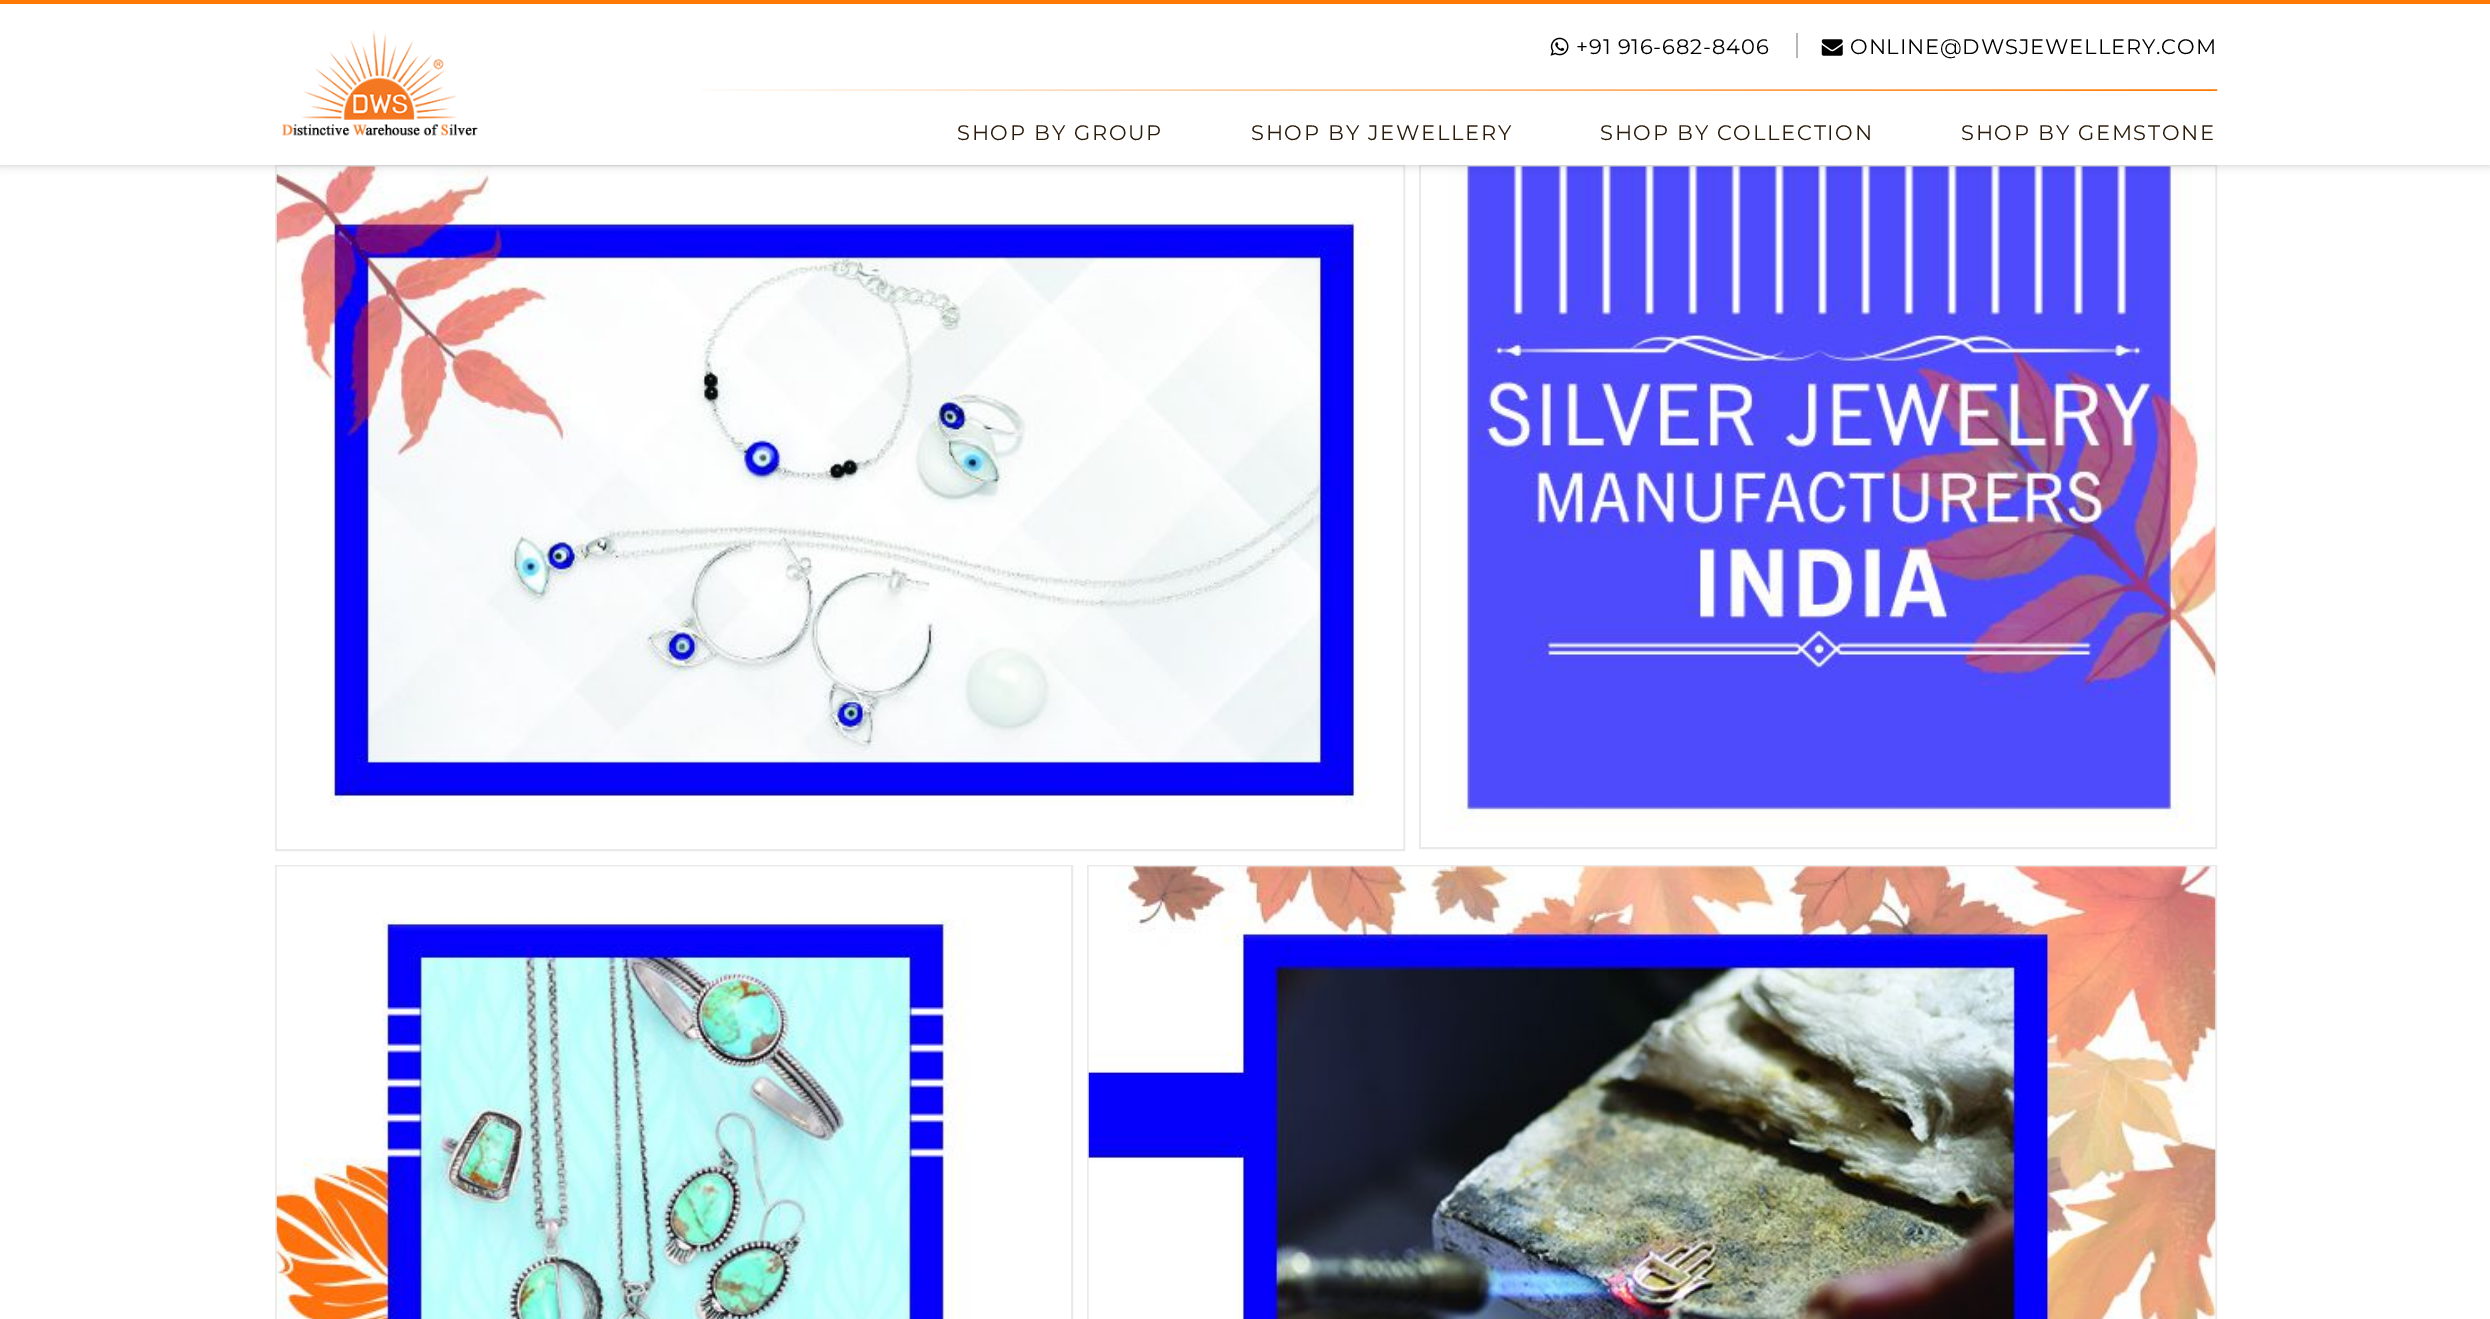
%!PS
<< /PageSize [2490 1319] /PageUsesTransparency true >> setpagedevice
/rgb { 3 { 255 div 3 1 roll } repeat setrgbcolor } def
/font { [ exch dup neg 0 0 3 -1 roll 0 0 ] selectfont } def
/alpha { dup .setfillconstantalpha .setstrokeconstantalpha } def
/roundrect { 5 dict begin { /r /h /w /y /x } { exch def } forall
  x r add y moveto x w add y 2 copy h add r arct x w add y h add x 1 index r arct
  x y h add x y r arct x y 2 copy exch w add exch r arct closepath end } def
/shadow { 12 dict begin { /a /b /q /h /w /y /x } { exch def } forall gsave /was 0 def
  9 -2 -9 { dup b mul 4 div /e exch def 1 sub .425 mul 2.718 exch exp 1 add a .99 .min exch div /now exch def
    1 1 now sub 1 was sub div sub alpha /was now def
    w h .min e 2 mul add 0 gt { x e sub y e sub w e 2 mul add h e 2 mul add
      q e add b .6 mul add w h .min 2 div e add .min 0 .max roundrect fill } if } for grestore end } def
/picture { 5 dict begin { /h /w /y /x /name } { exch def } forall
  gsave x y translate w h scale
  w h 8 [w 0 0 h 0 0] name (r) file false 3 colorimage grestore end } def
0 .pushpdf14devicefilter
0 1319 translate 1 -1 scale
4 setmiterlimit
255 255 255 rgb
0 0 2490 1319 rectfill
234 234 234 rgb
2 setlinewidth
276 166 1128 684 rectstroke
(img/5.rgb) 276 166 1128 682 picture
1420 166 796 682 rectstroke
(img/6.rgb) 1421 166 795 681 picture
0 0 0 rgb
0 0 2490 165 0 4.5 0.2 shadow
255 255 255 rgb
0 4 2490 161 rectfill
255 121 4 rgb
0 0 2490 4 rectfill
(img/1.rgb) 282 30 196 106 picture
(img/2.rgb) 1550 37 19 19 picture
183 183 183 rgb
1796 33 2 25 rectfill
(img/3.rgb) 1821 39 22 17 picture
(img/4.rgb) 702 89 1516 2 picture
234 234 234 rgb
276 866 796 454 rectstroke
(img/7.rgb) 276 866 795 453 picture
1088 866 1128 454 rectstroke
(img/8.rgb) 1088 866 1128 453 picture
/Montserrat-Regular 21 font
0 0 0 rgb
1576 54 moveto 0.9 0 (+91 916-682-8406) ashow
1850 54 moveto 0.9 0 (ONLINE@DWSJEWELLERY.COM) ashow
43 27 11 rgb
957 140 moveto 1.75 0 (SHOP BY GROUP) ashow
1251 140 moveto 1.75 0 (SHOP BY JEWELLERY) ashow
1600 140 moveto 1.75 0 (SHOP BY COLLECTION) ashow
1961 140 moveto 1.75 0 (SHOP BY GEMSTONE) ashow
.poppdf14devicefilter showpage
